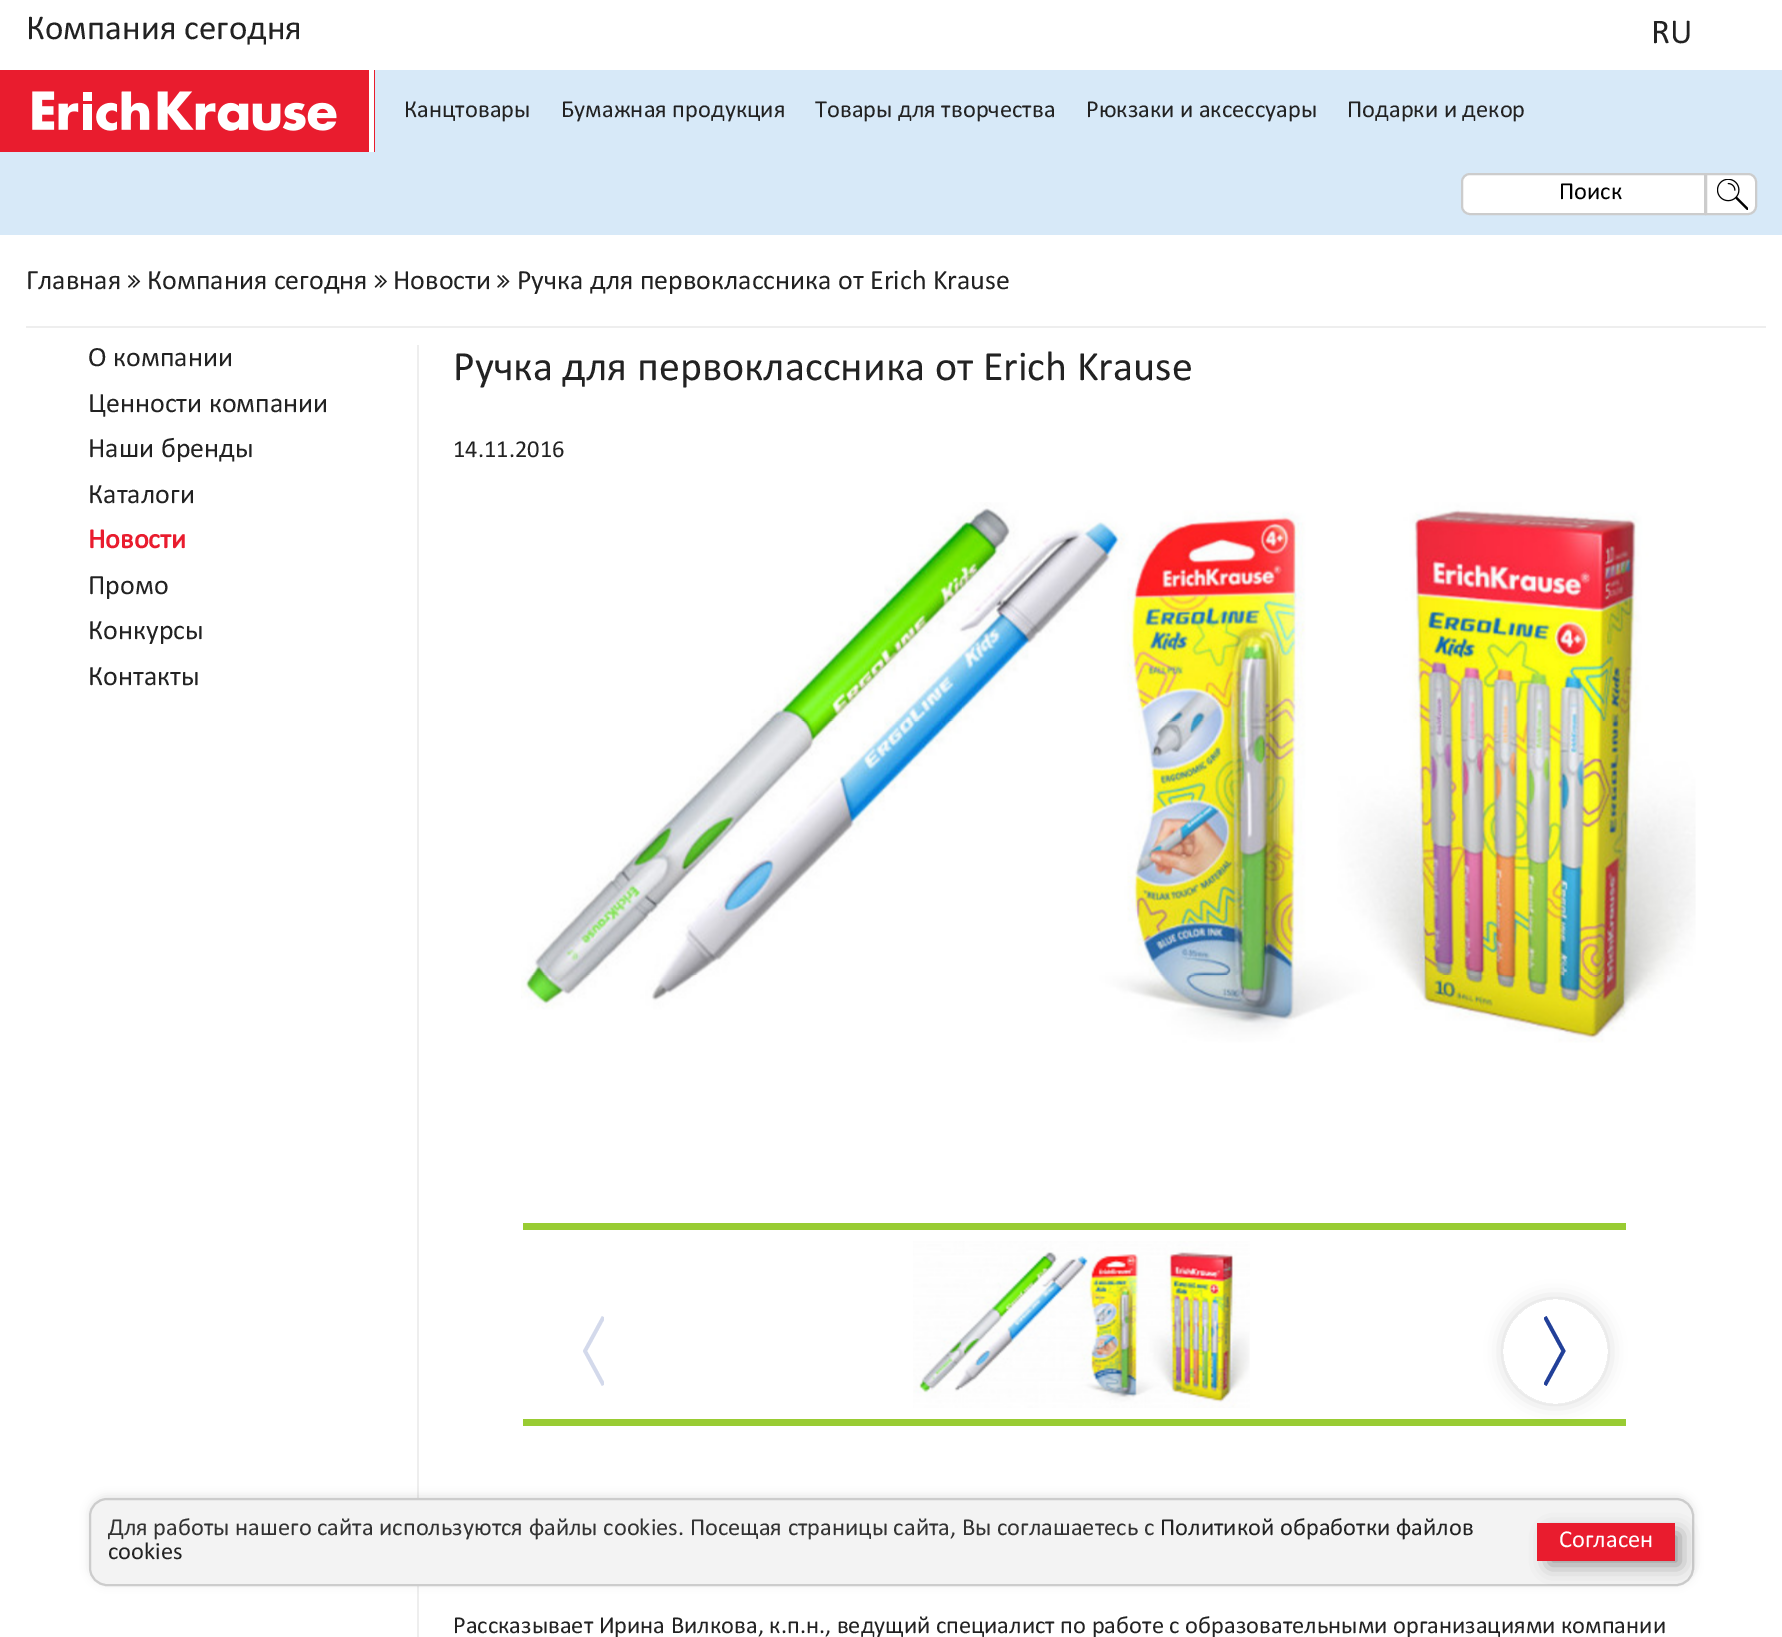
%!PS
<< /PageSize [1782 1637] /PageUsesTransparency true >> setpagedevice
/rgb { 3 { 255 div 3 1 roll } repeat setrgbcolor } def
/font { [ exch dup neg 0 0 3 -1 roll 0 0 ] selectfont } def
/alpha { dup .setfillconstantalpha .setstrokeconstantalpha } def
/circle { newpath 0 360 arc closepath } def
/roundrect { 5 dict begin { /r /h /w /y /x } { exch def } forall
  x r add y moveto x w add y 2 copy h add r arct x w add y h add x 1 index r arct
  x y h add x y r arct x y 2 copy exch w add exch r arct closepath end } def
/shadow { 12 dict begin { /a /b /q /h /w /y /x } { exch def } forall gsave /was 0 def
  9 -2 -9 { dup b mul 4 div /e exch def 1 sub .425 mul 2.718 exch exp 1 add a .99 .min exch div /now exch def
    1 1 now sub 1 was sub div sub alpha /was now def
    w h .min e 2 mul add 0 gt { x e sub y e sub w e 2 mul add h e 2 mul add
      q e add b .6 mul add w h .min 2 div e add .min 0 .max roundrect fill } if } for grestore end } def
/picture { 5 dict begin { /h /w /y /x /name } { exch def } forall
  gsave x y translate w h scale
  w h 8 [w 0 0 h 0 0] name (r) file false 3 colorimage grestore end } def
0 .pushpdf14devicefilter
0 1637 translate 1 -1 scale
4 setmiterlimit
255 255 255 rgb
0 0 1782 1637 rectfill
215 233 248 rgb
0 70 1782 165 rectfill
233 28 46 rgb
0 70 375 82 rectfill
(img/1.rgb) 32 91 305 40 picture
255 255 255 rgb
369 70 5 82 rectfill
1470 174 moveto 1705 174 lineto 1705 214 lineto 1470 214 lineto 1465.5 214 1462 210.5 1462 206 curveto 1462 182 lineto 1462 177.5 1465.5 174 1470 174 curveto closepath gsave fill grestore
204 204 204 rgb
2 setlinewidth
stroke
255 255 255 rgb
1706 174 moveto 1748 174 lineto 1752.5 174 1756 177.5 1756 182 curveto 1756 206 lineto 1756 210.5 1752.5 214 1748 214 curveto 1706 214 lineto closepath gsave fill grestore
204 204 204 rgb
stroke
(img/2.rgb) 1717 179 31 31 picture
238 238 238 rgb
26 326 1740 2 rectfill
(img/3.rgb) 128 275 13 13 picture
(img/4.rgb) 374 275 13 13 picture
(img/5.rgb) 497 275 13 13 picture
417 345 2 1292 rectfill
(img/6.rgb) 521 502 1175 541 picture
153 204 51 rgb
523 1223 1103 7 rectfill
(img/7.rgb) 913 1241 337 167 picture
523 1419 1103 7 rectfill
gsave
583 1316 21 70 rectclip
211 217 235 rgb
3.7 setlinewidth
603.5 1317 moveto 585 1351 lineto 603.5 1385 lineto stroke
grestore
gsave
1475 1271 moveto 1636 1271 lineto 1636 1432 lineto 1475 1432 lineto closepath 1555.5 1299 moveto 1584.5 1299 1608 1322.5 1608 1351.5 curveto 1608 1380.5 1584.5 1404 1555.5 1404 curveto 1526.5 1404 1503 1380.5 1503 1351.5 curveto 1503 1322.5 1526.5 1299 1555.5 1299 curveto closepath eoclip newpath
0 0 0 rgb
1503 1299 105 105 52.5 9 0.15 shadow
grestore
0.25 alpha
255 255 255 rgb
1555.5 1351.5 52.5 circle fill
gsave
1544 1316 22 70 rectclip
1 alpha
34 64 153 rgb
3.7 setlinewidth
1545 1385 moveto 1563.5 1351 lineto 1545 1317 lineto stroke
grestore
1 alpha
0 0 0 rgb
89 1496 1605 88 18 4.5 0.1 shadow
243 243 243 rgb
90 1499 1603 86 17 roundrect gsave fill grestore
204 204 204 rgb
stroke
0 0 0 rgb
1549 1533 131 32 0 9 0.4 shadow
233 28 46 rgb
1537 1523 138 38 rectfill
/Calibri-Regular 35 font
34 34 34 rgb
26 39 moveto (Компания сегодня) show
1651 43 moveto (RU) show
/Calibri-Regular 24.5 font
[
  [(Канцтовары) 404 117]
  [(Бумажная продукция) 561 117]
  [(Товары для творчества) 815 117]
  [(Рюкзаки и аксессуары) 1086 117]
  [(Подарки и декор) 1347 117]
] { aload pop moveto show } forall
0 0 0 rgb
1559 199 moveto (Поиск) show
/Calibri-Regular 28 font
34 34 34 rgb
[
  [(Главная) 26 289]
  [(Компания сегодня) 147 289]
  [(Новости) 393 289]
  [(Ручка для первоклассника от Erich Krause) 517 289]
  [(О компании) 88 366]
  [(Ценности компании) 88 412]
  [(Наши бренды) 88 457]
  [(Каталоги) 88 503]
] { aload pop moveto show } forall
/Calibri-Bold 28 font
233 28 46 rgb
88 548 moveto (Новости) show
/Calibri-Regular 28 font
34 34 34 rgb
[
  [(Промо) 88 594]
  [(Конкурсы) 88 639]
  [(Контакты) 88 685]
] { aload pop moveto show } forall
/Calibri-Regular 42 font
453 380 moveto (Ручка для первоклассника от Erich Krause) show
/Calibri-Regular 24.5 font
453 457 moveto (14.11.2016) show
453 1633 moveto (Рассказывает Ирина Вилкова, к.п.н., ведущий специалист по работе с образовательными организациями компании) show
51 51 51 rgb
108 1535 moveto (Для работы нашего сайта используются файлы cookies. Посещая страницы сайта, Вы соглашаетесь с) show
34 34 34 rgb
1160 1535 moveto (Политикой обработки файлов) show
108 1559 moveto (cookies) show
255 255 255 rgb
1559 1547 moveto (Согласен) show
.poppdf14devicefilter showpage
